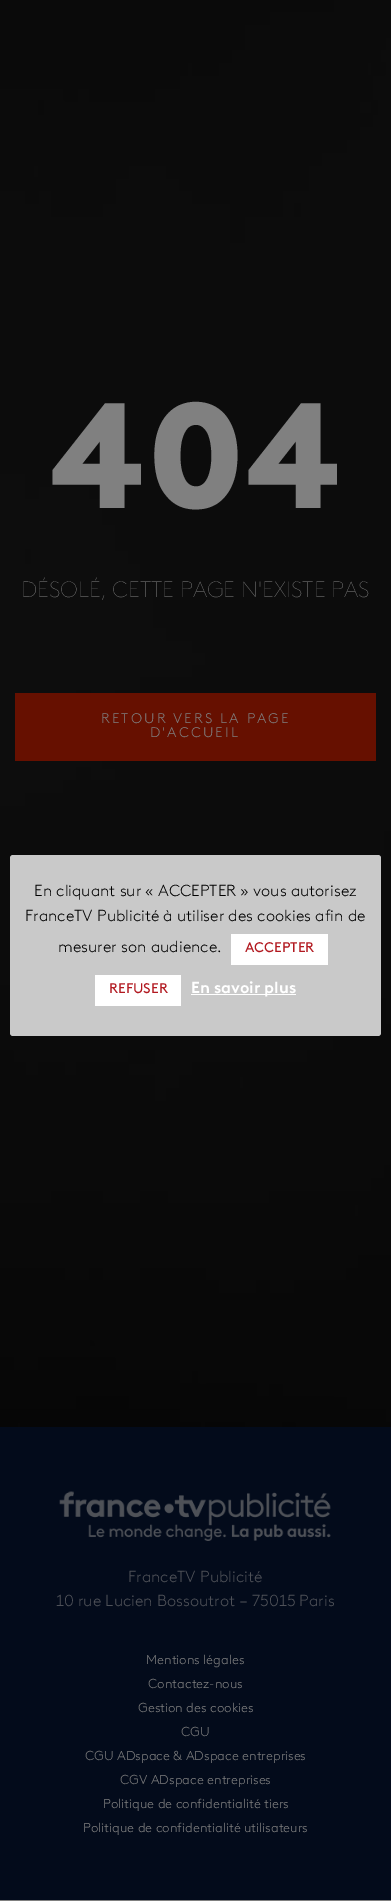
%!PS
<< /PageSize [391 1901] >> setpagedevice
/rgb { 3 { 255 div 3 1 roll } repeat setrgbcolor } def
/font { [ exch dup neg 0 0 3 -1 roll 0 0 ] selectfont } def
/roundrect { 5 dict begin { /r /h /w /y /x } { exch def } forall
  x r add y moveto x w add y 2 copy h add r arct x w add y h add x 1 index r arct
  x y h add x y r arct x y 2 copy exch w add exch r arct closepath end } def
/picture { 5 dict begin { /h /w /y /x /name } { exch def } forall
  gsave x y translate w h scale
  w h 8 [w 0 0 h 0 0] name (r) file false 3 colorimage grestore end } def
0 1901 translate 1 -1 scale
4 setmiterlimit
128 128 128 rgb
0 0 391 1901 rectfill
(img/1.rgb) 0 0 391 1427 picture
102 16 0 rgb
15 693 361 68 rectfill
201 201 201 rgb
10 855 371 181 3 roundrect fill
[
  [231 934 97 31 255 255 255]
  [95 975 86 31 255 255 255]
  [191 994 105 1 255 255 255]
  [0 1427 391 473 3 11 27]
] { aload pop rgb rectfill } forall
(img/2.rgb) 59 1491 272 50 picture
/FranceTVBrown-Black 150 font
128 128 128 rgb
49 508 moveto (404) show
/FranceTVBrown-Thin 22 font
21 597 moveto (DÉSOLÉ, CETTE PAGE N'EXISTE PAS) show
/FranceTVBrown-Light 14 font
101 723 moveto 2.1 0 (RETOUR VERS LA PAGE) ashow
150 737 moveto 2.1 0 (D'ACCUEIL) ashow
/FranceTVBrown-Light 16 font
0 0 0 rgb
[
  [(En cliquant sur « ACCEPTER » vous autorisez) 34 896]
  [(FranceTV Publicité à utiliser des cookies afin de) 25 921]
  [(mesurer son audience.) 58 952]
] { aload pop moveto show } forall
/FranceTVBrown-Regular 14 font
178 25 32 rgb
245 952 moveto (ACCEPTER) show
109 993 moveto (REFUSER) show
/FranceTVBrown-Bold 16 font
255 255 255 rgb
191 993 moveto (En savoir plus) show
/FranceTVBrown-Light 16 font
78 81 88 rgb
128 1582 moveto (FranceTV Publicité) show
56 1606 moveto (10 rue Lucien Bossoutrot – 75015 Paris) show
/FranceTVBrown-Light 13 font
128 128 128 rgb
[
  [(Mentions légales) 146 1664]
  [(Contactez-nous) 148 1688]
  [(Gestion des cookies) 138 1712]
  [(CGU) 181 1736]
  [(CGU ADspace & ADspace entreprises) 85 1760]
  [(CGV ADspace entreprises) 120 1784]
  [(Politique de confidentialité tiers) 103 1808]
  [(Politique de confidentialité utilisateurs) 83 1832]
] { aload pop moveto show } forall
showpage
